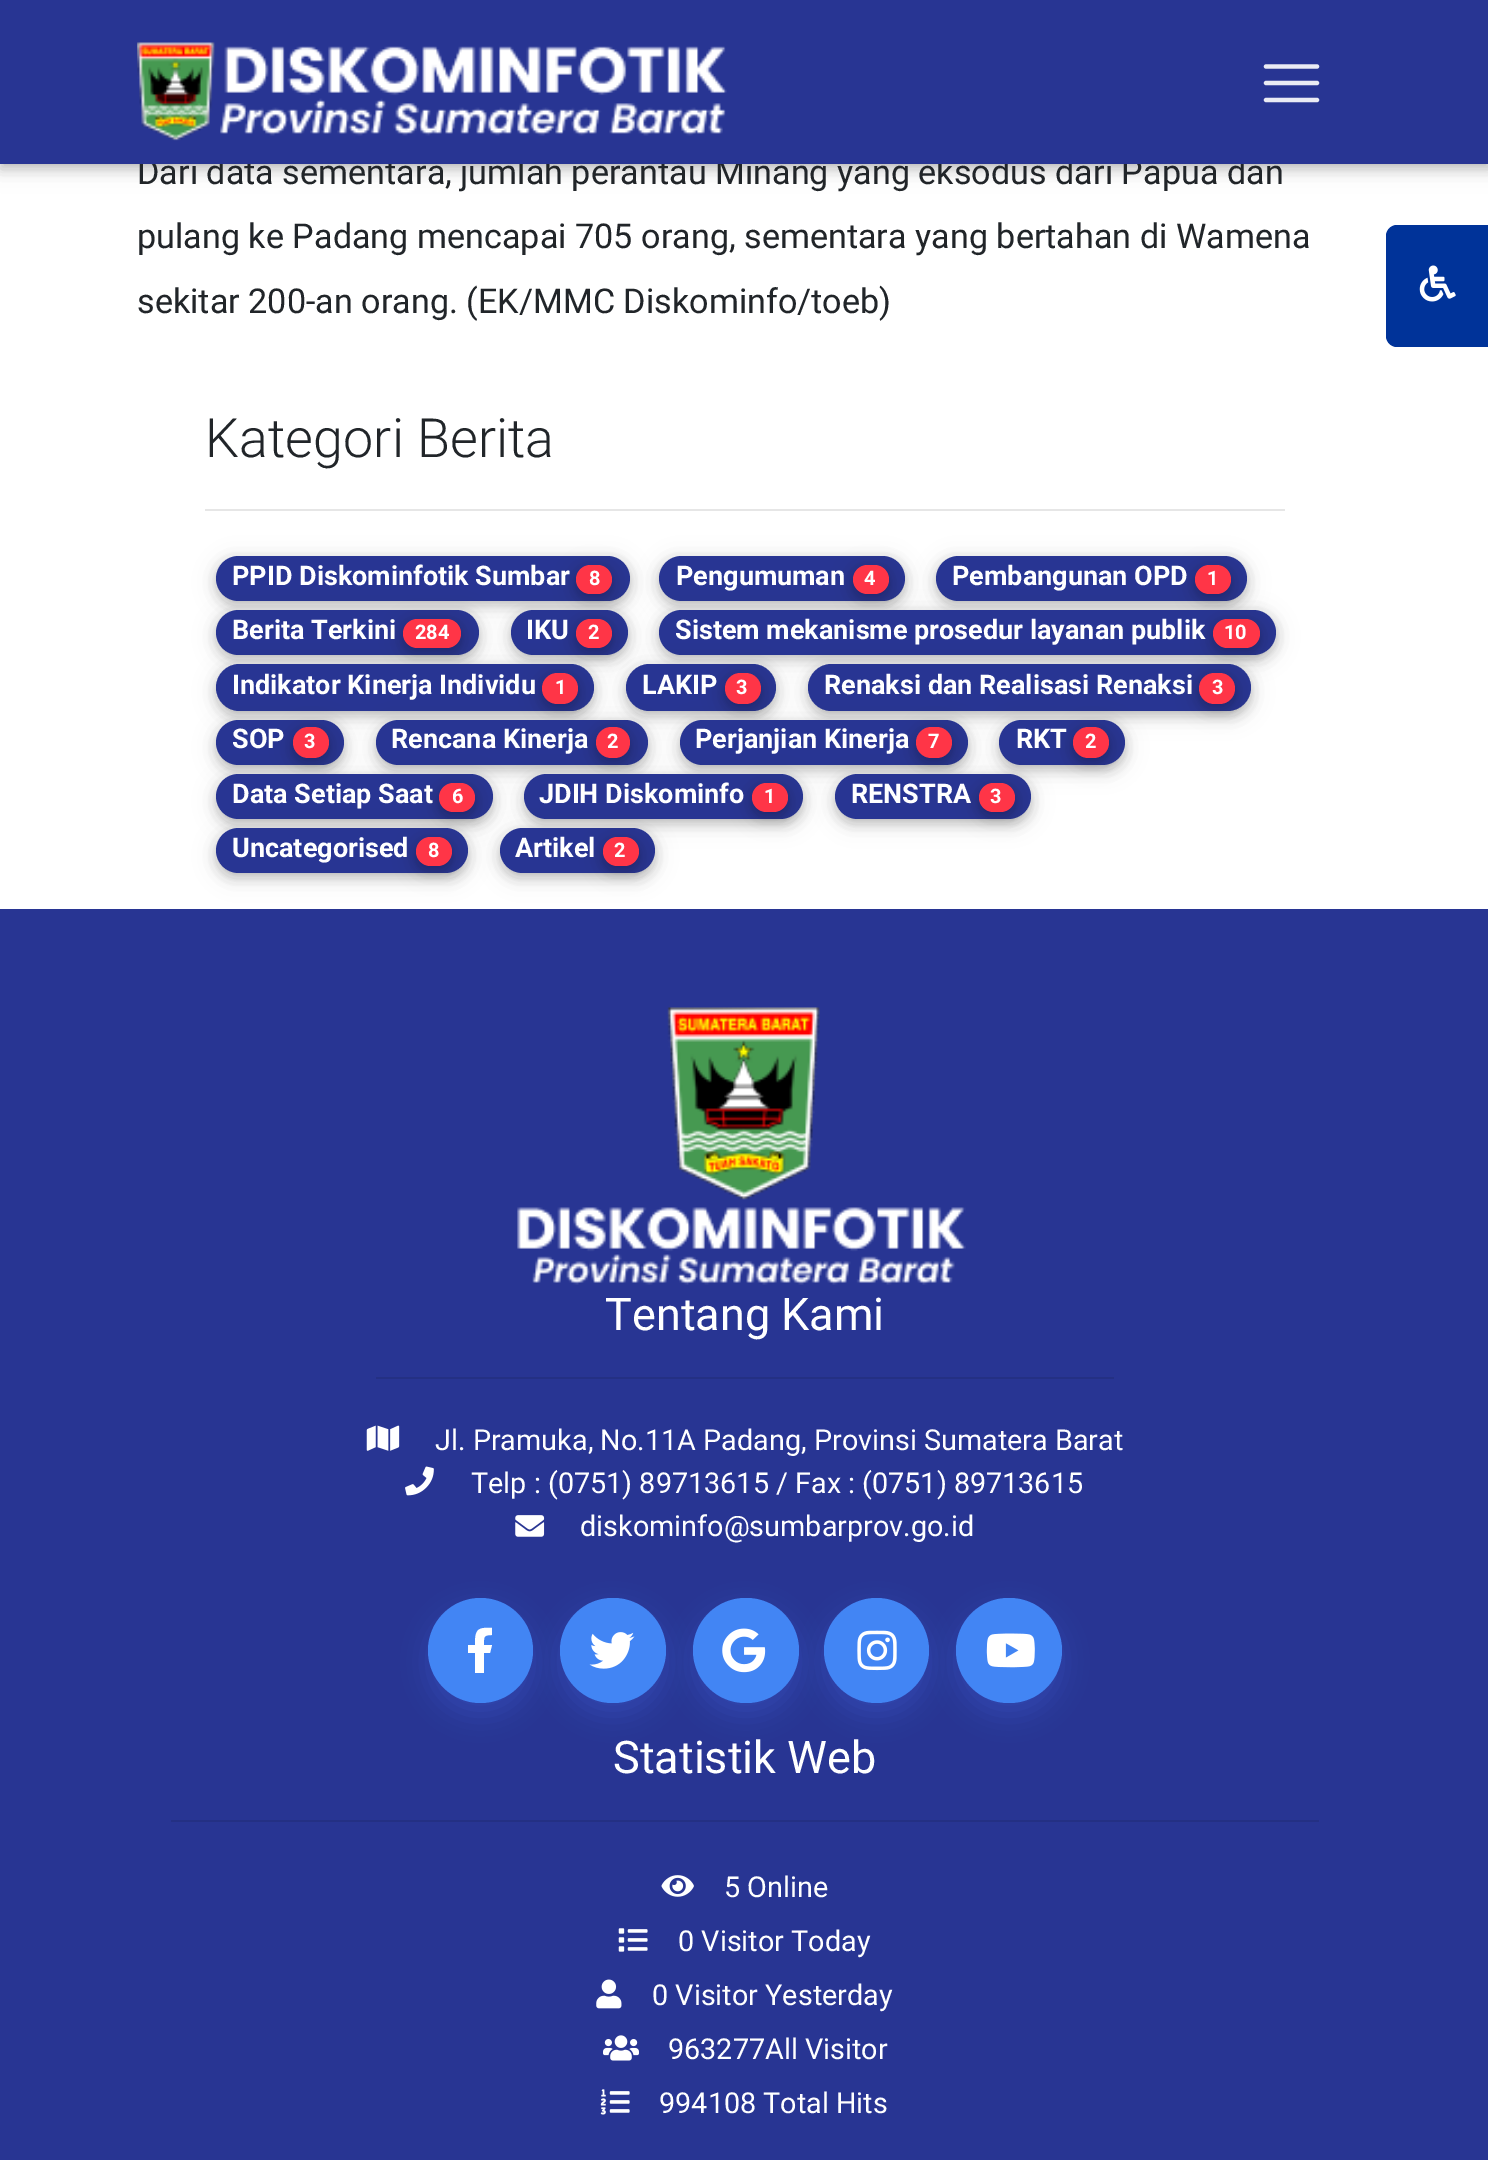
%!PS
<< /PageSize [1488 2160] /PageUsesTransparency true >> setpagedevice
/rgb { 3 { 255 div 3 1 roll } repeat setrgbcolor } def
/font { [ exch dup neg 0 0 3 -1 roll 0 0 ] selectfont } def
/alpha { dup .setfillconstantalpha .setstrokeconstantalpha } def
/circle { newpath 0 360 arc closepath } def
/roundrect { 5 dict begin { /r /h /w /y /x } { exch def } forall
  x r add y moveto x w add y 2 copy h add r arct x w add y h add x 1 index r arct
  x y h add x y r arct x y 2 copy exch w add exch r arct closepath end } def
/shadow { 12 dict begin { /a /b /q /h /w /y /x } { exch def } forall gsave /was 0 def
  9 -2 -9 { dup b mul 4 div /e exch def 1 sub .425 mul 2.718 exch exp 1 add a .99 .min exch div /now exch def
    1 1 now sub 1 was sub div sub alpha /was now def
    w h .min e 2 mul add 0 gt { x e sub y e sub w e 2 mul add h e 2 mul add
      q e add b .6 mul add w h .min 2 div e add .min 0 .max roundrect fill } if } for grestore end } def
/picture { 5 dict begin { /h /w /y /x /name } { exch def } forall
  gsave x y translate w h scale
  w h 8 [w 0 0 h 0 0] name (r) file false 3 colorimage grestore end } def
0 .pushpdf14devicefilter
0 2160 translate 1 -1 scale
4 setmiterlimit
255 255 255 rgb
0 0 1488 2160 rectfill
0 0 0 rgb
0 5 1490 164 0 11 0.12 shadow
0 5 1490 164 0 5.5 0.16 shadow
0 51 153 rgb
1397 225 moveto 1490 225 lineto 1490 347 lineto 1397 347 lineto 1391 347 1386 342 1386 336 curveto 1386 236 lineto 1386 230 1391 225 1397 225 curveto closepath fill
(img/2.rgb) 1419 265 37 37 picture
230 230 230 rgb
205 509 1080 2 rectfill
0 0 0 rgb
216 560 414 45 22.5 11 0.12 shadow
216 560 414 45 22.5 5.5 0.16 shadow
40 53 147 rgb
216 556 414 45 22.5 roundrect fill
0 0 0 rgb
576 569 36 30 15 11 0.12 shadow
576 569 36 30 15 5.5 0.16 shadow
255 53 71 rgb
576 565 36 29 14.5 roundrect fill
0 0 0 rgb
659 560 246 45 22.5 11 0.12 shadow
659 560 246 45 22.5 5.5 0.16 shadow
40 53 147 rgb
659 556 246 45 22.5 roundrect fill
0 0 0 rgb
853 569 36 30 15 11 0.12 shadow
853 569 36 30 15 5.5 0.16 shadow
255 53 71 rgb
853 565 36 29 14.5 roundrect fill
0 0 0 rgb
936 560 311 45 22.5 11 0.12 shadow
936 560 311 45 22.5 5.5 0.16 shadow
40 53 147 rgb
936 556 311 45 22.5 roundrect fill
0 0 0 rgb
1195 569 36 30 15 11 0.12 shadow
1195 569 36 30 15 5.5 0.16 shadow
255 53 71 rgb
1195 565 36 29 14.5 roundrect fill
0 0 0 rgb
216 614 263 45 22.5 11 0.12 shadow
216 614 263 45 22.5 5.5 0.16 shadow
40 53 147 rgb
216 610 263 45 22.5 roundrect fill
0 0 0 rgb
403 623 58 30 15 11 0.12 shadow
403 623 58 30 15 5.5 0.16 shadow
255 53 71 rgb
403 619 58 29 14.5 roundrect fill
0 0 0 rgb
511 614 117 45 22.5 11 0.12 shadow
511 614 117 45 22.5 5.5 0.16 shadow
40 53 147 rgb
511 610 117 45 22.5 roundrect fill
0 0 0 rgb
576 623 36 30 15 11 0.12 shadow
576 623 36 30 15 5.5 0.16 shadow
255 53 71 rgb
576 619 36 29 14.5 roundrect fill
0 0 0 rgb
659 614 617 45 22.5 11 0.12 shadow
659 614 617 45 22.5 5.5 0.16 shadow
40 53 147 rgb
659 610 617 45 22.5 roundrect fill
0 0 0 rgb
1213 623 47 30 15 11 0.12 shadow
1213 623 47 30 15 5.5 0.16 shadow
255 53 71 rgb
1213 619 47 29 14.5 roundrect fill
0 0 0 rgb
216 668 378 48 24 11 0.12 shadow
216 668 378 48 24 5.5 0.16 shadow
40 53 147 rgb
216 664 378 47 23.5 roundrect fill
0 0 0 rgb
542 677 36 32 16 11 0.12 shadow
542 677 36 32 16 5.5 0.16 shadow
255 53 71 rgb
542 673 36 31 15.5 roundrect fill
0 0 0 rgb
626 668 150 48 24 11 0.12 shadow
626 668 150 48 24 5.5 0.16 shadow
40 53 147 rgb
626 664 150 47 23.5 roundrect fill
0 0 0 rgb
725 677 36 32 16 11 0.12 shadow
725 677 36 32 16 5.5 0.16 shadow
255 53 71 rgb
725 673 36 31 15.5 roundrect fill
0 0 0 rgb
808 668 443 48 24 11 0.12 shadow
808 668 443 48 24 5.5 0.16 shadow
40 53 147 rgb
808 664 443 47 23.5 roundrect fill
0 0 0 rgb
1199 677 36 32 16 11 0.12 shadow
1199 677 36 32 16 5.5 0.16 shadow
255 53 71 rgb
1199 673 36 31 15.5 roundrect fill
0 0 0 rgb
216 725 128 45 22.5 11 0.12 shadow
216 725 128 45 22.5 5.5 0.16 shadow
40 53 147 rgb
216 720 128 45 22.5 roundrect fill
0 0 0 rgb
293 731 36 32 16 11 0.12 shadow
293 731 36 32 16 5.5 0.16 shadow
255 53 71 rgb
293 727 36 31 15.5 roundrect fill
0 0 0 rgb
376 725 272 45 22.5 11 0.12 shadow
376 725 272 45 22.5 5.5 0.16 shadow
40 53 147 rgb
376 720 272 45 22.5 roundrect fill
0 0 0 rgb
596 731 34 32 16 11 0.12 shadow
596 731 34 32 16 5.5 0.16 shadow
255 53 71 rgb
596 727 34 31 15.5 roundrect fill
0 0 0 rgb
680 725 288 45 22.5 11 0.12 shadow
680 725 288 45 22.5 5.5 0.16 shadow
40 53 147 rgb
680 720 288 45 22.5 roundrect fill
0 0 0 rgb
916 731 36 32 16 11 0.12 shadow
916 731 36 32 16 5.5 0.16 shadow
255 53 71 rgb
916 727 36 31 15.5 roundrect fill
0 0 0 rgb
999 725 126 45 22.5 11 0.12 shadow
999 725 126 45 22.5 5.5 0.16 shadow
40 53 147 rgb
999 720 126 45 22.5 roundrect fill
0 0 0 rgb
1073 731 36 32 16 11 0.12 shadow
1073 731 36 32 16 5.5 0.16 shadow
255 53 71 rgb
1073 727 36 31 15.5 roundrect fill
0 0 0 rgb
216 779 277 45 22.5 11 0.12 shadow
216 779 277 45 22.5 5.5 0.16 shadow
40 53 147 rgb
216 774 277 45 22.5 roundrect fill
0 0 0 rgb
439 788 36 29 14.5 11 0.12 shadow
439 788 36 29 14.5 5.5 0.16 shadow
255 53 71 rgb
439 783 36 29 14.5 roundrect fill
0 0 0 rgb
524 779 279 45 22.5 11 0.12 shadow
524 779 279 45 22.5 5.5 0.16 shadow
40 53 147 rgb
524 774 279 45 22.5 roundrect fill
0 0 0 rgb
752 788 36 29 14.5 11 0.12 shadow
752 788 36 29 14.5 5.5 0.16 shadow
255 53 71 rgb
752 783 36 29 14.5 roundrect fill
0 0 0 rgb
835 779 196 45 22.5 11 0.12 shadow
835 779 196 45 22.5 5.5 0.16 shadow
40 53 147 rgb
835 774 196 45 22.5 roundrect fill
0 0 0 rgb
979 788 36 29 14.5 11 0.12 shadow
979 788 36 29 14.5 5.5 0.16 shadow
255 53 71 rgb
979 783 36 29 14.5 roundrect fill
40 53 147 rgb
0 909 1488 1251 rectfill
0 0 0 rgb
216 833 252 45 22.5 11 0.12 shadow
216 833 252 45 22.5 5.5 0.16 shadow
40 53 147 rgb
216 828 252 45 22.5 roundrect fill
0 0 0 rgb
416 842 36 29 14.5 11 0.12 shadow
416 842 36 29 14.5 5.5 0.16 shadow
255 53 71 rgb
416 837 36 29 14.5 roundrect fill
0 0 0 rgb
500 833 155 45 22.5 11 0.12 shadow
500 833 155 45 22.5 5.5 0.16 shadow
40 53 147 rgb
500 828 155 45 22.5 roundrect fill
0 0 0 rgb
603 842 36 29 14.5 11 0.12 shadow
603 842 36 29 14.5 5.5 0.16 shadow
255 53 71 rgb
603 837 36 29 14.5 roundrect fill
(img/3.rgb) 517 1007 449 278 picture
36 48 132 rgb
376 1377 738 2 rectfill
(img/4.rgb) 366 1425 34 26 picture
(img/5.rgb) 405 1466 29 30 picture
(img/6.rgb) 515 1515 30 22 picture
74 124 255 rgb
428 1609 105 106 52.5 12.5 0.24 shadow
66 133 244 rgb
480.5 1650.5 52.5 circle fill
255 255 255 rgb
490 1653 moveto 484 1653 lineto 484 1673 lineto 475 1673 lineto 475 1653 lineto 468 1653 lineto 468 1645 lineto 475 1645 lineto 475 1630 477 1627 492 1628 curveto 492 1635 lineto 483 1635 484 1637 484 1645 curveto 492 1645 lineto closepath fill
74 124 255 rgb
560 1609 106 106 53 12.5 0.24 shadow
66 133 244 rgb
560 1598 106 105 52.5 roundrect fill
(img/7.rgb) 589 1632 46 37 picture
74 124 255 rgb
693 1609 106 106 53 12.5 0.24 shadow
66 133 244 rgb
693 1598 106 105 52.5 roundrect fill
(img/8.rgb) 722 1628 44 45 picture
74 124 255 rgb
824 1609 105 106 52.5 12.5 0.24 shadow
66 133 244 rgb
876.5 1650.5 52.5 circle fill
(img/9.rgb) 857 1630 40 41 picture
74 124 255 rgb
956 1609 106 106 53 12.5 0.24 shadow
66 133 244 rgb
956 1598 106 105 52.5 roundrect fill
(img/10.rgb) 986 1633 49 35 picture
36 48 132 rgb
171 1820 1148 2 rectfill
(img/11.rgb) 661 1875 33 22 picture
(img/12.rgb) 618 1928 30 24 picture
(img/13.rgb) 596 1979 26 30 picture
(img/14.rgb) 603 2035 36 26 picture
(img/15.rgb) 600 2089 30 26 picture
/Roboto-Regular 34.2 font
33 37 41 rgb
137 184 moveto (Dari data sementara, jumlah perantau Minang yang eksodus dari Papua dan) show
40 53 147 rgb
0 0 1488 164 rectfill
234 235 244 rgb
4.2 setlinewidth
1 setlinecap
1266 66.5 moveto 1317 66.5 lineto 1266 83 moveto 1317 83 lineto 1266 100 moveto 1317 100 lineto stroke
(img/1.rgb) 137 42 590 99 picture
33 37 41 rgb
137 248 moveto (pulang ke Padang mencapai 705 orang, sementara yang bertahan di Wamena) show
137 313 moveto (sekitar 200-an orang. \(EK/MMC Diskominfo/toeb\)) show
/Roboto-Light 54 font
205 457 moveto (Kategori Berita) show
/Roboto-Bold 27 font
255 255 255 rgb
232 585 moveto (PPID Diskominfotik Sumbar) show
/Roboto-Bold 20 font
589 585 moveto (8) show
/Roboto-Bold 27 font
676 585 moveto (Pengumuman) show
/Roboto-Bold 20 font
864 585 moveto (4) show
/Roboto-Bold 27 font
952 585 moveto (Pembangunan OPD) show
/Roboto-Bold 20 font
1207 585 moveto (1) show
/Roboto-Bold 27 font
232 639 moveto (Berita Terkini) show
/Roboto-Bold 20 font
415 639 moveto (284) show
/Roboto-Bold 27 font
526 639 moveto (IKU) show
/Roboto-Bold 20 font
588 639 moveto (2) show
/Roboto-Bold 27 font
675 639 moveto (Sistem mekanisme prosedur layanan publik) show
/Roboto-Bold 20 font
1224 639 moveto (10) show
/Roboto-Bold 27 font
232 694 moveto (Indikator Kinerja Individu) show
/Roboto-Bold 20 font
555 694 moveto (1) show
/Roboto-Bold 27 font
642 694 moveto (LAKIP) show
/Roboto-Bold 20 font
736 694 moveto (3) show
/Roboto-Bold 27 font
824 694 moveto (Renaksi dan Realisasi Renaksi) show
/Roboto-Bold 20 font
1212 694 moveto (3) show
/Roboto-Bold 27 font
232 748 moveto (SOP) show
/Roboto-Bold 20 font
304 748 moveto (3) show
/Roboto-Bold 27 font
391 748 moveto (Rencana Kinerja) show
/Roboto-Bold 20 font
607 748 moveto (2) show
/Roboto-Bold 27 font
695 748 moveto (Perjanjian Kinerja) show
/Roboto-Bold 20 font
928 748 moveto (7) show
/Roboto-Bold 27 font
1016 748 moveto (RKT) show
/Roboto-Bold 20 font
1085 748 moveto (2) show
/Roboto-Bold 27 font
232 803 moveto (Data Setiap Saat) show
/Roboto-Bold 20 font
452 803 moveto (6) show
/Roboto-Bold 27 font
539 803 moveto (JDIH Diskominfo) show
/Roboto-Bold 20 font
764 803 moveto (1) show
/Roboto-Bold 27 font
851 803 moveto (RENSTRA) show
/Roboto-Bold 20 font
990 803 moveto (3) show
/Roboto-Bold 27 font
232 857 moveto (Uncategorised) show
/Roboto-Bold 20 font
428 857 moveto (8) show
/Roboto-Bold 27 font
515 857 moveto (Artikel) show
/Roboto-Bold 20 font
614 857 moveto (2) show
/Roboto-Regular 45 font
605 1330 moveto (Tentang Kami) show
/Roboto-Regular 28.8 font
[
  [(Jl. Pramuka, No.11A Padang, Provinsi Sumatera Barat) 435 1450]
  [(Telp : \(0751\) 89713615 / Fax : \(0751\) 89713615) 471 1493]
  [(diskominfo@sumbarprov.go.id) 580 1536]
] { aload pop moveto show } forall
/Roboto-Regular 45 font
613 1773 moveto (Statistik Web) show
/Roboto-Regular 28.8 font
[
  [(5 Online) 724 1897]
  [(0 Visitor Today) 678 1951]
  [(0 Visitor Yesterday) 652 2005]
  [(963277All Visitor) 668 2059]
  [(994108 Total Hits) 659 2113]
] { aload pop moveto show } forall
.poppdf14devicefilter showpage
